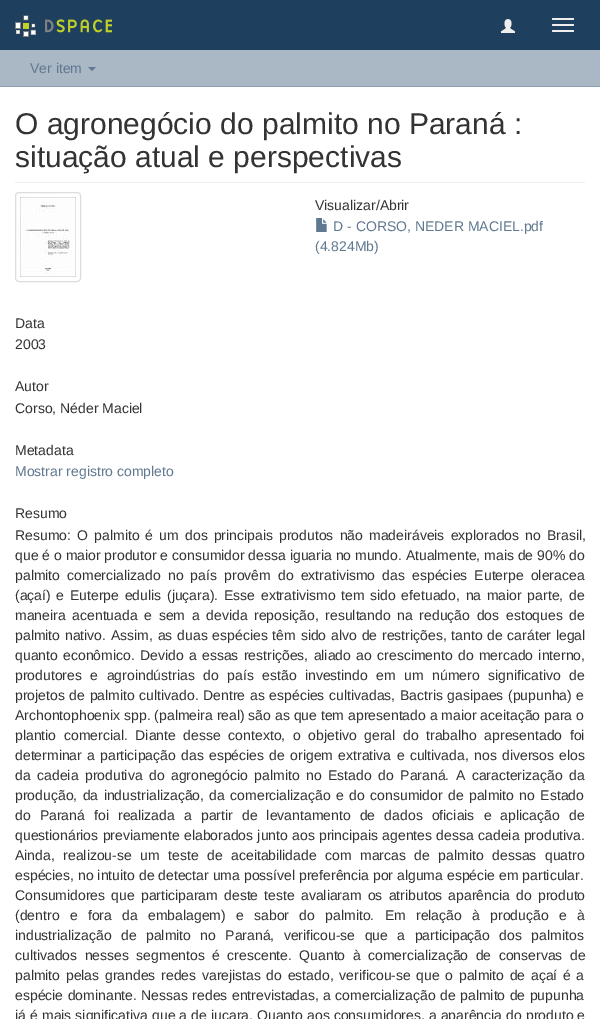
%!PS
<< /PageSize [600 1019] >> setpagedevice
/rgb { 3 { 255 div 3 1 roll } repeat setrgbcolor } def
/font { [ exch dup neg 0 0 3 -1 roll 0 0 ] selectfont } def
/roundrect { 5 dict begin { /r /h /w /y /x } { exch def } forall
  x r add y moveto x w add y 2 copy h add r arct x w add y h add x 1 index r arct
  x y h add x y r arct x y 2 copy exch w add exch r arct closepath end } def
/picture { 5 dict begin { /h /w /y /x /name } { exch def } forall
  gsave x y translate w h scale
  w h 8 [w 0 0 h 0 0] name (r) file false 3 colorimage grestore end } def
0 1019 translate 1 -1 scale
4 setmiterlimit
170 184 198 rgb
0 0 600 1019 rectfill
31 63 94 rgb
0 0 600 50 rectfill
(img/1.rgb) 15 15 97 22 picture
(img/2.rgb) 501 19 14 14 picture
238 238 238 rgb
552 18 22 2 1 roundrect fill
552 24 22 2 1 roundrect fill
552 30 22 2 1 roundrect fill
139 158 178 rgb
0 86 600 1 rectfill
96 120 144 rgb
88 67 moveto 96 67 lineto 92 71 lineto closepath fill
255 255 255 rgb
0 87 600 932 rectfill
238 238 238 rgb
15 182 570 1 rectfill
221 221 221 rgb
15.5 192.5 65 89 3.5 roundrect stroke
(img/3.rgb) 20 197 56 80 picture
(img/4.rgb) 316 218 11 14 picture
/LiberationSans-Regular 14 font
96 120 144 rgb
30 73 moveto (Ver item) show
/LiberationSans-Regular 30 font
51 51 51 rgb
15 134 moveto (O agronegócio do palmito no Paraná :) show
15 167 moveto (situação atual e perspectivas) show
/LiberationSans-Regular 14 font
315 210 moveto (Visualizar/Abrir) show
96 120 144 rgb
333 231 moveto (D - CORSO, NEDER MACIEL.pdf) show
315 251 moveto (\(4.824Mb\)) show
51 51 51 rgb
[
  [(Data) 15 328]
  [(2003) 15 349]
  [(Autor) 15 391]
  [(Corso, Néder Maciel) 15 413]
  [(Metadata) 15 455]
] { aload pop moveto show } forall
96 120 144 rgb
15 476 moveto (Mostrar registro completo) show
51 51 51 rgb
15 518 moveto (Resumo) show
15 540 moveto 2.25 0 32 (Resumo: O palmito é um dos principais produtos não madeiráveis explorados no Brasil,) widthshow
15 560 moveto (que é o maior produtor e consumidor dessa iguaria no mundo. Atualmente, mais de 90% do) show
15 580 moveto 3.25 0 32 (palmito comercializado no país provêm do extrativismo das espécies Euterpe oleracea) widthshow
15 600 moveto 1.8 0 32 (\(açaí\) e Euterpe edulis \(juçara\). Esse extrativismo tem sido efetuado, na maior parte, de) widthshow
15 620 moveto 2.75 0 32 (maneira acentuada e sem a devida reposição, resultando na redução dos estoques de) widthshow
15 640 moveto 0.9 0 32 (palmito nativo. Assim, as duas espécies têm sido alvo de restrições, tanto de caráter legal) widthshow
15 660 moveto 1.4 0 32 (quanto econômico. Devido a essas restrições, aliado ao crescimento do mercado interno,) widthshow
15 680 moveto 4.6 0 32 (produtores e agroindústrias do país estão investindo em um número significativo de) widthshow
15 700 moveto 0.75 0 32 (projetos de palmito cultivado. Dentre as espécies cultivadas, Bactris gasipaes \(pupunha\) e) widthshow
15 720 moveto (Archontophoenix spp. \(palmeira real\) são as que tem apresentado a maior aceitação para o) show
15 740 moveto 3.75 0 32 (plantio comercial. Diante desse contexto, o objetivo geral do trabalho apresentado foi) widthshow
15 760 moveto 1.4 0 32 (determinar a participação das espécies de origem extrativa e cultivada, nos diversos elos) widthshow
15 780 moveto 2.6 0 32 (da cadeia produtiva do agronegócio palmito no Estado do Paraná. A caracterização da) widthshow
15 800 moveto 1.5 0 32 (produção, da industrialização, da comercialização e do consumidor de palmito no Estado) widthshow
15 820 moveto 5.25 0 32 (do Paraná foi realizada a partir de levantamento de dados oficiais e aplicação de) widthshow
15 840 moveto 0.4 0 32 (questionários previamente elaborados junto aos principais agentes dessa cadeia produtiva.) widthshow
15 860 moveto 4.6 0 32 (Ainda, realizou-se um teste de aceitabilidade com marcas de palmito dessas quatro) widthshow
15 880 moveto (espécies, no intuito de detectar uma possível preferência por alguma espécie em particular.) show
15 900 moveto 2.25 0 32 (Consumidores que participaram deste teste avaliaram os atributos aparência do produto) widthshow
15 920 moveto 6.4 0 32 (\(dentro e fora da embalagem\) e sabor do palmito. Em relação à produção e à) widthshow
15 940 moveto 5.5 0 32 (industrialização de palmito no Paraná, verificou-se que a participação dos palmitos) widthshow
15 960 moveto 3.5 0 32 (cultivados nesses segmentos é crescente. Quanto à comercialização de conservas de) widthshow
15 980 moveto 1.75 0 32 (palmito pelas grandes redes varejistas do estado, verificou-se que o palmito de açaí é a) widthshow
15 1000 moveto 0.5 0 32 (espécie dominante. Nessas redes entrevistadas, a comercialização de palmito de pupunha) widthshow
15 1020 moveto 0.2 0 32 (já é mais significativa que a de juçara. Quanto aos consumidores, a aparência do produto e) widthshow
showpage
